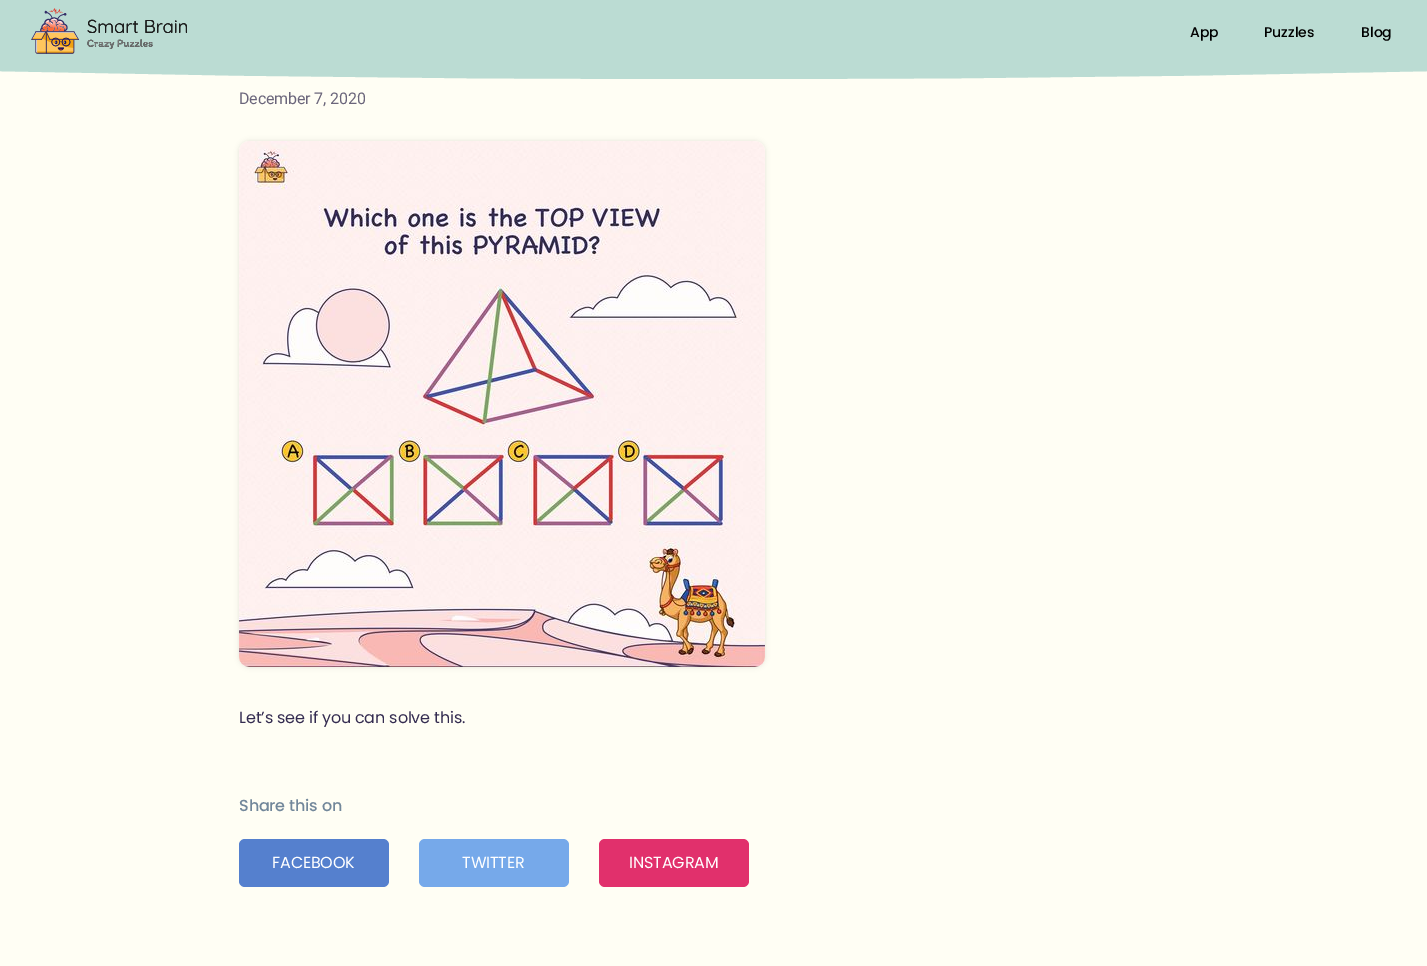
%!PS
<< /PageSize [1427 966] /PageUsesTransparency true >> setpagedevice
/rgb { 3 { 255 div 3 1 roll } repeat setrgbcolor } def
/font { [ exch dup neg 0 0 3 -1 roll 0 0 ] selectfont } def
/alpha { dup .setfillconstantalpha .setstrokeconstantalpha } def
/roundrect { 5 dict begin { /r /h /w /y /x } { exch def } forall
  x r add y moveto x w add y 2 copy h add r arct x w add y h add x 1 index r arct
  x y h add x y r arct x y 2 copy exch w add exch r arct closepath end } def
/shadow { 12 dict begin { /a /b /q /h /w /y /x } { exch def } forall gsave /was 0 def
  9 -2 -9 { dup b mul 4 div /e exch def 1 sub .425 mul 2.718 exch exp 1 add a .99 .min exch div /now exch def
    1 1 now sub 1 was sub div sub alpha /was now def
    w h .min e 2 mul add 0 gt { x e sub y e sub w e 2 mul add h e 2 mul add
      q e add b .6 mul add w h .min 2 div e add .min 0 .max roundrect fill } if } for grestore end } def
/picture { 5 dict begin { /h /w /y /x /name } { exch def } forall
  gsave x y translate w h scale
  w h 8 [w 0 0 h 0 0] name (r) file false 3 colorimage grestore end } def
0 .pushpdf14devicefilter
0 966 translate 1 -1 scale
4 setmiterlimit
255 254 244 rgb
0 0 1427 966 rectfill
gsave
0 0 1427 79 rectclip
187 220 211 rgb
-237 0 moveto 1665 0 lineto 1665 65 lineto 1031 84 397 84 -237 65 curveto closepath eofill
grestore
(img/1.rgb) 31 8 156 46 picture
0 0 0 rgb
239 141 526 526 10 2.5 0.1 shadow
(img/2.rgb) 239 141 526 526 picture
85 128 206 rgb
239 839 150 48 6 roundrect fill
118 169 234 rgb
419 839 150 48 6 roundrect fill
225 48 108 rgb
599 839 150 48 6 roundrect fill
/Poppins-Medium 14 font
0 0 0 rgb
[
  [(App) 1190 37]
  [(Puzzles) 1264 37]
  [(Blog) 1361 37]
] { aload pop moveto show } forall
/Roboto-Regular 16 font
107 102 123 rgb
239 104 moveto -0.15 0 (December 7, 2020) ashow
/Poppins-Regular 16 font
52 44 80 rgb
239 723 moveto -0.15 0 (Let’s see if you can solve this.) ashow
/Poppins-Medium 16 font
114 135 154 rgb
239 811 moveto -0.15 0 (Share this on) ashow
/Poppins-Regular 16 font
255 255 255 rgb
272 868 moveto -0.15 0 (FACEBOOK) ashow
462 868 moveto -0.15 0 (TWITTER) ashow
629 868 moveto -0.15 0 (INSTAGRAM) ashow
.poppdf14devicefilter showpage
